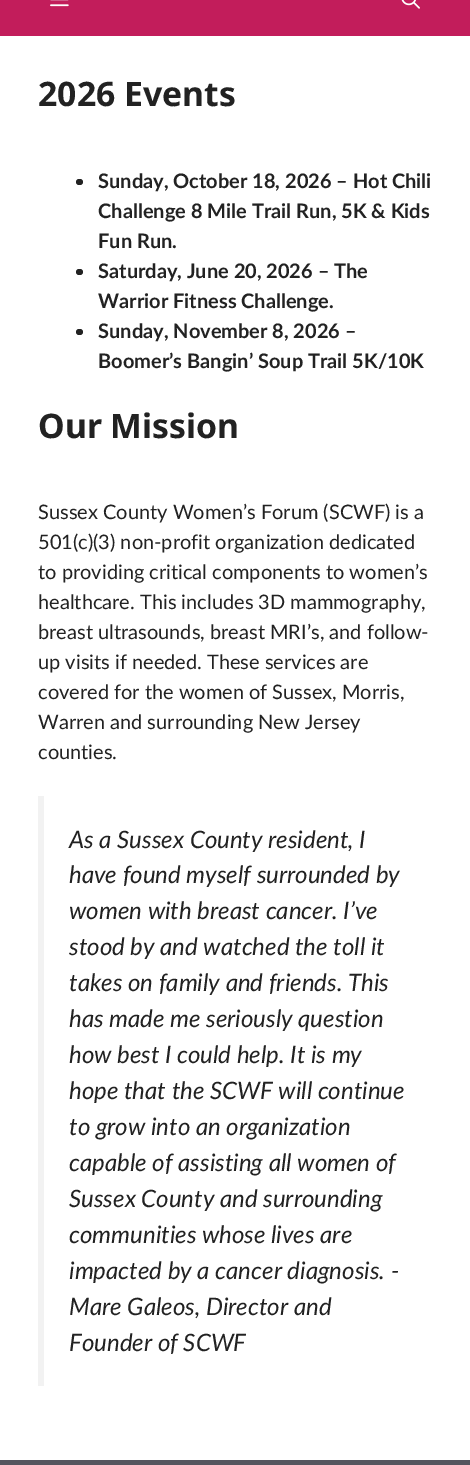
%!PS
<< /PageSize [470 1465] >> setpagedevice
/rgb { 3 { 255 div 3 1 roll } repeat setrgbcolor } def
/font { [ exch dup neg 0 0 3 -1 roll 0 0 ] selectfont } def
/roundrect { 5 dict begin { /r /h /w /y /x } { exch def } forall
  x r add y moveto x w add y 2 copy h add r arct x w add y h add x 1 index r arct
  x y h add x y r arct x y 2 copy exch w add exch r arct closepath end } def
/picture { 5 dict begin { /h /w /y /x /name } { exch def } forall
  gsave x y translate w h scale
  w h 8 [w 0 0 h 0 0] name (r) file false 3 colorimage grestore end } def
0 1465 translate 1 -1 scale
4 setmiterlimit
255 255 255 rgb
0 0 470 1465 rectfill
194 29 91 rgb
0 0 470 36 rectfill
(img/1.rgb) 50 0 19 7 picture
(img/2.rgb) 401 0 19 9 picture
34 34 34 rgb
76 179 7 6 3 roundrect fill
76 269 7 6 3 roundrect fill
76 329 7 6 3 roundrect fill
242 242 242 rgb
38 796 6 590 rectfill
85 85 94 rgb
0 1460 470 5 rectfill
/NotoSans-Bold 33.75 font
34 34 34 rgb
38 106 moveto (2026 Events) show
/Lato-Bold 20 font
[
  [(Sunday, October 18, 2026 – Hot Chili) 98 188]
  [(Challenge 8 Mile Trail Run, 5K & Kids) 98 218]
  [(Fun Run.) 98 248]
  [(Saturday, June 20, 2026 – The) 98 278]
  [(Warrior Fitness Challenge.) 98 308]
  [(Sunday, November 8, 2026 –) 98 338]
  [(Boomer’s Bangin’ Soup Trail 5K/10K) 98 368]
] { aload pop moveto show } forall
/NotoSans-Bold 33.75 font
38 438 moveto (Our Mission) show
/Lato-Regular 20 font
[
  [(Sussex County Women’s Forum \(SCWF\) is a) 38 519]
  [(501\(c\)\(3\) non-profit organization dedicated) 38 549]
  [(to providing critical components to women’s) 38 579]
  [(healthcare. This includes 3D mammography,) 38 609]
  [(breast ultrasounds, breast MRI’s, and follow-) 38 639]
  [(up visits if needed. These services are) 38 669]
  [(covered for the women of Sussex, Morris,) 38 699]
  [(Warren and surrounding New Jersey) 38 729]
  [(counties.) 38 759]
] { aload pop moveto show } forall
/Lato-Italic 24 font
[
  [(As a Sussex County resident, I) 69 848]
  [(have found myself surrounded by) 69 883]
  [(women with breast cancer. I’ve) 69 919]
  [(stood by and watched the toll it) 69 955]
  [(takes on family and friends. This) 69 991]
  [(has made me seriously question) 69 1027]
  [(how best I could help. It is my) 69 1063]
  [(hope that the SCWF will continue) 69 1099]
  [(to grow into an organization) 69 1135]
  [(capable of assisting all women of) 69 1171]
  [(Sussex County and surrounding) 69 1207]
  [(communities whose lives are) 69 1243]
  [(impacted by a cancer diagnosis. -) 69 1279]
  [(Mare Galeos, Director and) 69 1315]
  [(Founder of SCWF) 69 1351]
] { aload pop moveto show } forall
showpage
